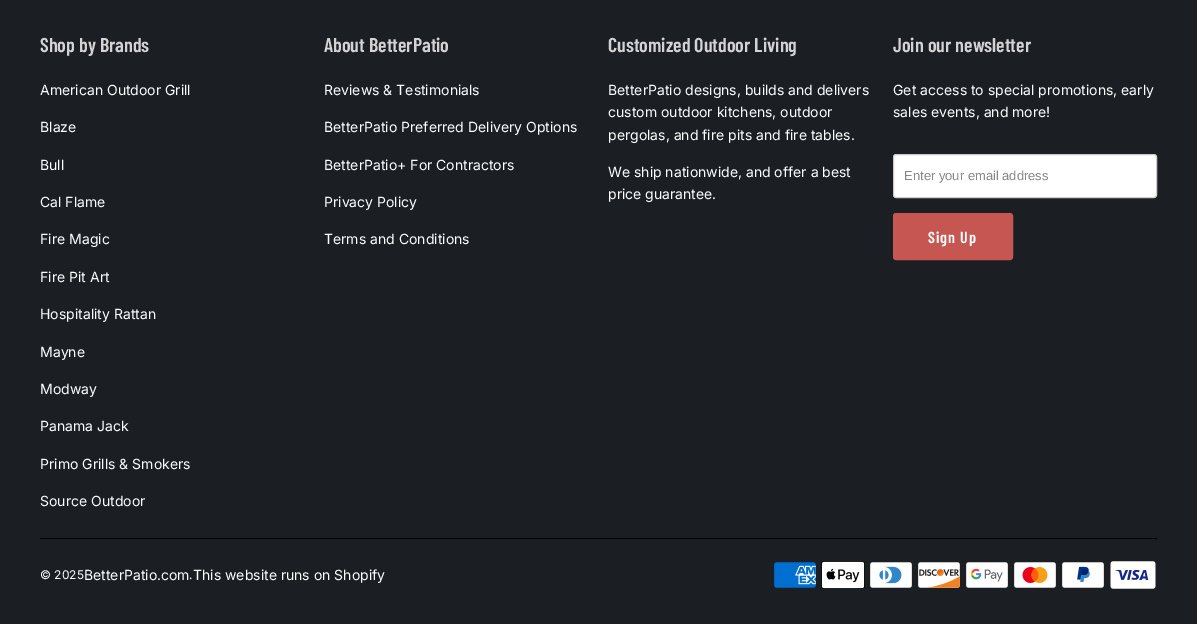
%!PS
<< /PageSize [1197 624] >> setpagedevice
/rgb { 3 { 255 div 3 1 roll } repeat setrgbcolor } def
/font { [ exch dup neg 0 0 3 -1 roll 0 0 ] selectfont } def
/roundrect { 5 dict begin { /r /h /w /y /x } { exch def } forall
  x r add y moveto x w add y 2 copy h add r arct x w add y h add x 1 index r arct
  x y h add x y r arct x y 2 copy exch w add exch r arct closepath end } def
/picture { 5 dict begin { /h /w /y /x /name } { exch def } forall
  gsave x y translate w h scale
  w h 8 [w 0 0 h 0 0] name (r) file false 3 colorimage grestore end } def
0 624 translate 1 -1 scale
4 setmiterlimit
27 31 35 rgb
0 0 1197 624 rectfill
255 255 255 rgb
893.5 154.5 263 43 2.5 roundrect gsave fill grestore
204 204 204 rgb
stroke
198 86 82 rgb
893.5 213.5 119 46 2.5 roundrect gsave fill grestore
stroke
0 0 0 rgb
40 538 1117 1 rectfill
(img/1.rgb) 774 562 42 26 picture
(img/2.rgb) 821 561 44 28 picture
(img/3.rgb) 870 562 42 26 picture
(img/4.rgb) 918 562 42 26 picture
(img/5.rgb) 966 562 42 26 picture
(img/6.rgb) 1014 562 42 26 picture
(img/7.rgb) 1062 562 42 26 picture
(img/8.rgb) 1110 561 46 28 picture
/BarlowCondensed-SemiBold 20 font
211 211 211 rgb
40 52 moveto (Shop by Brands) show
/Inter-Regular 14 font
255 255 255 rgb
[
  [(American Outdoor Grill) 40 95]
  [(Blaze) 40 132]
  [(Bull) 40 170]
  [(Cal Flame) 40 207]
  [(Fire Magic) 40 244]
  [(Fire Pit Art) 40 282]
  [(Hospitality Rattan) 40 319]
  [(Mayne) 40 357]
  [(Modway) 40 394]
  [(Panama Jack) 40 431]
  [(Primo Grills & Smokers) 40 469]
  [(Source Outdoor) 40 506]
] { aload pop moveto show } forall
/BarlowCondensed-SemiBold 20 font
211 211 211 rgb
324 52 moveto (About BetterPatio) show
/Inter-Regular 14 font
255 255 255 rgb
[
  [(Reviews & Testimonials) 324 95]
  [(BetterPatio Preferred Delivery Options) 324 132]
  [(BetterPatio+ For Contractors) 324 170]
  [(Privacy Policy) 324 207]
  [(Terms and Conditions) 324 244]
] { aload pop moveto show } forall
/BarlowCondensed-SemiBold 20 font
211 211 211 rgb
608 52 moveto (Customized Outdoor Living) show
/Inter-Regular 14 font
255 255 255 rgb
[
  [(BetterPatio designs, builds and delivers) 608 95]
  [(custom outdoor kitchens, outdoor) 608 117]
  [(pergolas, and fire pits and fire tables.) 608 140]
  [(We ship nationwide, and offer a best) 608 177]
  [(price guarantee.) 608 199]
] { aload pop moveto show } forall
/BarlowCondensed-SemiBold 20 font
211 211 211 rgb
893 52 moveto (Join our newsletter) show
/Inter-Regular 14 font
255 255 255 rgb
893 95 moveto (Get access to special promotions, early) show
893 117 moveto (sales events, and more!) show
/LiberationSans-Regular 13 font
136 136 136 rgb
904 180 moveto (Enter your email address) show
/BarlowCondensed-SemiBold 16 font
255 255 255 rgb
928 243 moveto 1 0 (Sign Up) ashow
/Inter-Regular 12 font
40 579 moveto (© 2025) show
/Inter-Regular 14 font
84 580 moveto (BetterPatio.com) show
/Inter-Regular 12 font
189 579 moveto (.) show
/Inter-Regular 14 font
193 580 moveto (This website runs on Shopify) show
showpage
